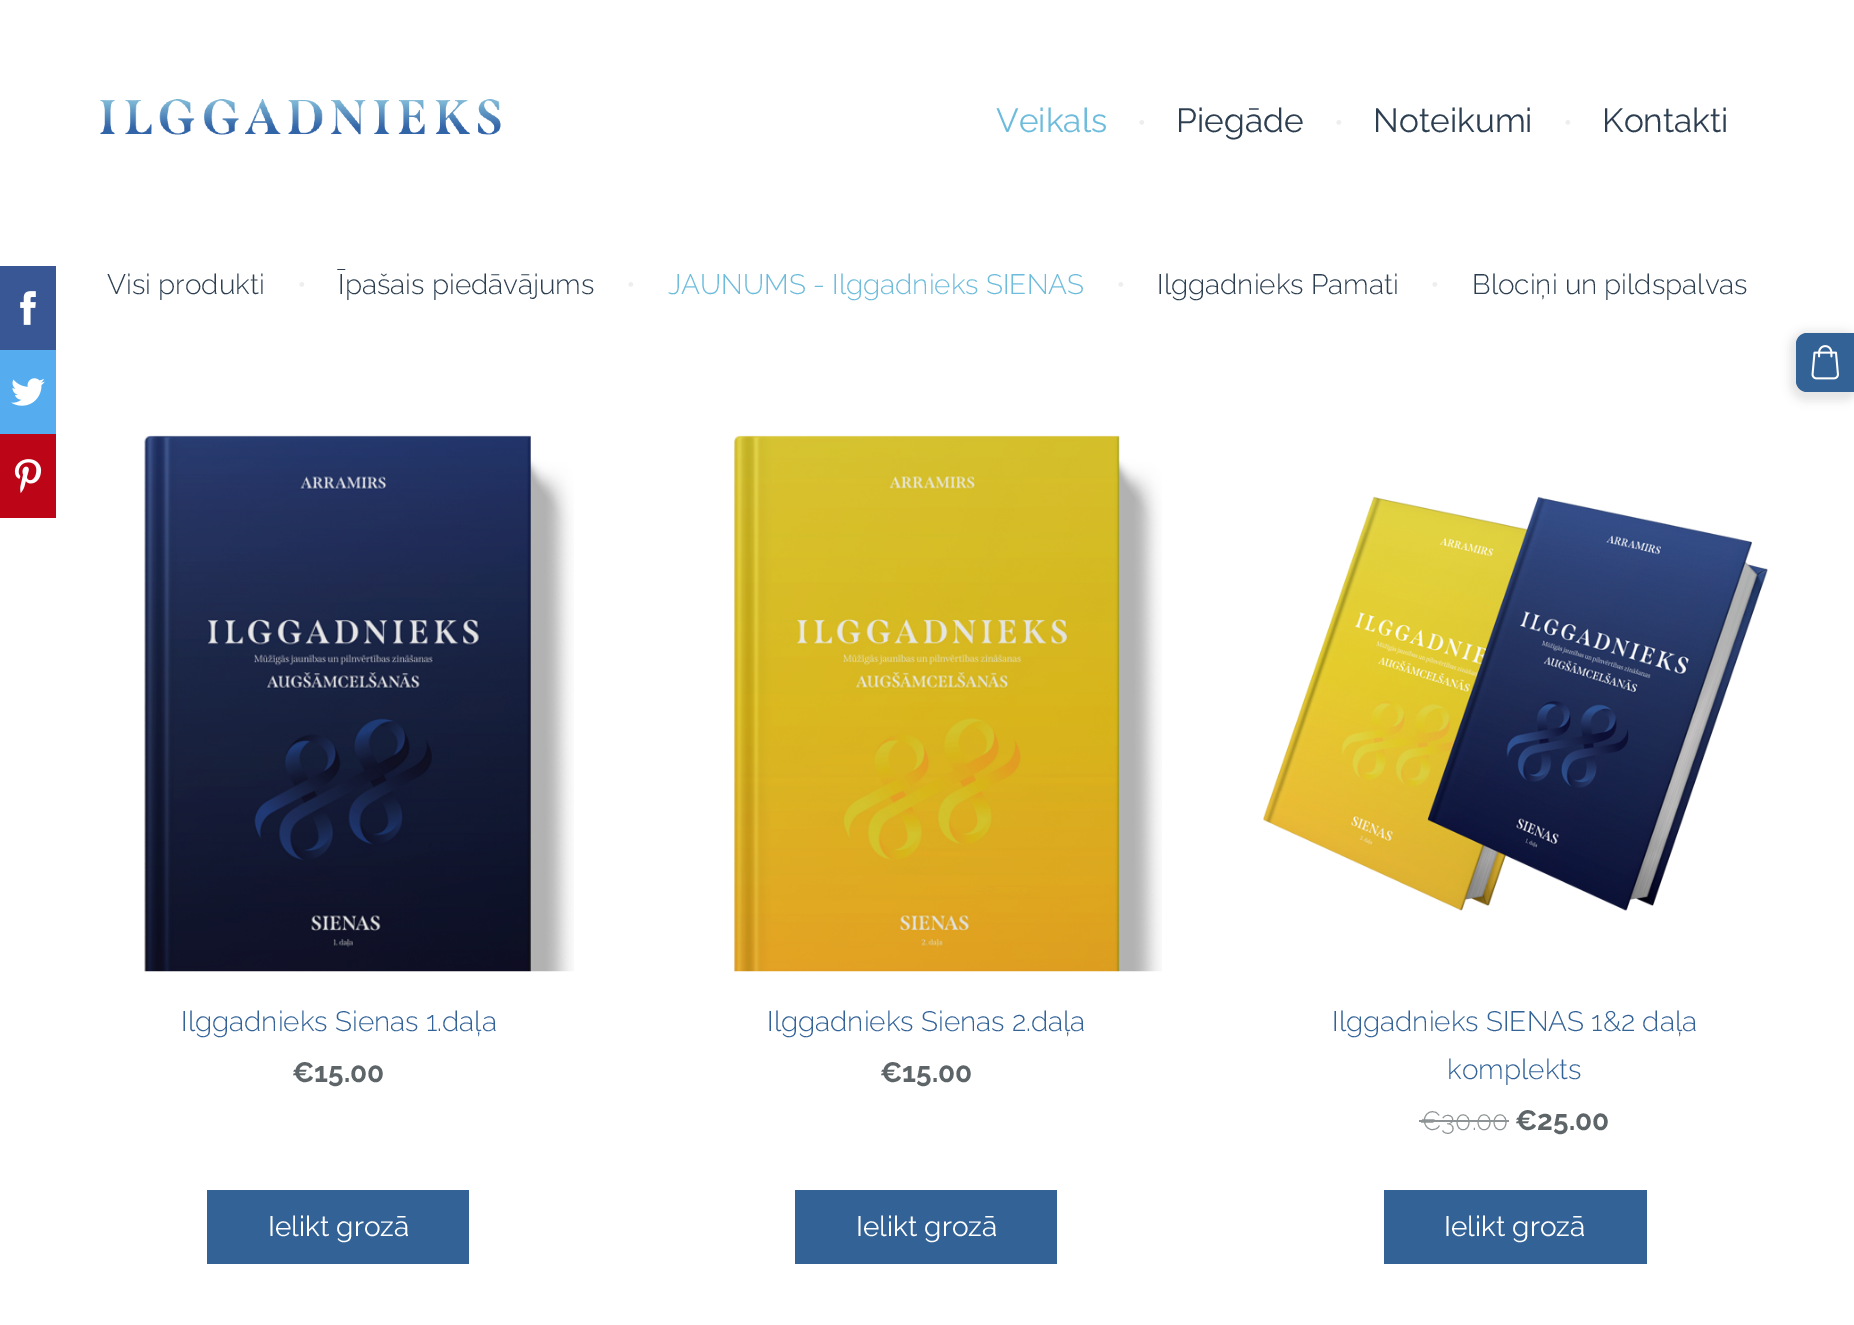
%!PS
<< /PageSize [1854 1325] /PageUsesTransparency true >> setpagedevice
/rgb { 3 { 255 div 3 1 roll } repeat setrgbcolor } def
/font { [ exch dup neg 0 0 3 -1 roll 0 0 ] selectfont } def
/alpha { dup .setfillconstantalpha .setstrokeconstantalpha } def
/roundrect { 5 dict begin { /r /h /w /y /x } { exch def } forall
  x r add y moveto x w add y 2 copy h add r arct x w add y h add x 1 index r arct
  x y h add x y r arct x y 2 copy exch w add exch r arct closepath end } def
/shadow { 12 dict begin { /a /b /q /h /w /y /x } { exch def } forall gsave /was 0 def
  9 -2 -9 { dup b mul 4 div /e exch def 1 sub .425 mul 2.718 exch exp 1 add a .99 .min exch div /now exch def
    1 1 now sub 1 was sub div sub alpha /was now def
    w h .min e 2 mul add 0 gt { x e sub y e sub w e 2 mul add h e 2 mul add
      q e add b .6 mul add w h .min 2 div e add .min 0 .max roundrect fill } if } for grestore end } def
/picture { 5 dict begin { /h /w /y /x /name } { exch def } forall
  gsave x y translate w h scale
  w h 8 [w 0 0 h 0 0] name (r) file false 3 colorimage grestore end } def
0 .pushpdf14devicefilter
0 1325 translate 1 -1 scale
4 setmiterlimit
255 255 255 rgb
0 0 1854 1325 rectfill
58 87 149 rgb
0 266 56 84 rectfill
(img/1.rgb) 20 291 16 34 picture
85 172 238 rgb
0 350 56 84 rectfill
(img/2.rgb) 11 378 34 28 picture
188 6 24 rgb
0 434 56 84 rectfill
(img/3.rgb) 14 459 28 34 picture
(img/4.rgb) 100 99 401 36 picture
0 0 0 rgb
1790 331 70 70 16 4.5 0.1 shadow
51 98 151 rgb
1807 333 moveto 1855 333 lineto 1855 392 lineto 1807 392 lineto 1801 392 1796 387 1796 381 curveto 1796 344 lineto 1796 338 1801 333 1807 333 curveto closepath fill
(img/5.rgb) 1811 345 28 35 picture
(img/6.rgb) 144 435 430 537 picture
207 1190 262 74 rectfill
(img/7.rgb) 734 435 428 537 picture
795 1190 262 74 rectfill
(img/8.rgb) 1263 496 505 415 picture
142 147 149 rgb
1419 1120 90 2 rectfill
51 98 151 rgb
1384 1190 263 74 rectfill
/Raleway-Regular 33.5 font
109 188 219 rgb
996 132 moveto (Veikals) show
/Raleway-Light 28 font
238 238 238 rgb
1137 132 moveto (•) show
/Raleway-Regular 33.5 font
44 62 80 rgb
1176 132 moveto (Piegāde) show
/Raleway-Light 28 font
238 238 238 rgb
1334 132 moveto (•) show
/Raleway-Regular 33.5 font
44 62 80 rgb
1373 132 moveto (Noteikumi) show
/Raleway-Light 28 font
238 238 238 rgb
1563 132 moveto (•) show
/Raleway-Regular 33.5 font
44 62 80 rgb
1602 132 moveto (Kontakti) show
/Raleway-Light 28 font
107 294 moveto (Visi produkti) show
238 238 238 rgb
297 294 moveto (•) show
44 62 80 rgb
338 294 moveto (Īpašais piedāvājums) show
238 238 238 rgb
626 294 moveto (•) show
109 188 219 rgb
668 294 moveto (JAUNUMS - Ilggadnieks SIENAS) show
238 238 238 rgb
1116 294 moveto (•) show
44 62 80 rgb
1157 294 moveto (Ilggadnieks Pamati) show
238 238 238 rgb
1430 294 moveto (•) show
44 62 80 rgb
1472 294 moveto (Blociņi un pildspalvas) show
51 98 151 rgb
181 1031 moveto (Ilggadnieks Sienas 1.daļa) show
/Raleway-Bold 28 font
94 101 104 rgb
292 1082 moveto (€15.00) show
/Raleway-Regular 28 font
255 255 255 rgb
268 1236 moveto (Ielikt grozā) show
/Raleway-Light 28 font
51 98 151 rgb
767 1031 moveto (Ilggadnieks Sienas 2.daļa) show
/Raleway-Bold 28 font
94 101 104 rgb
880 1082 moveto (€15.00) show
/Raleway-Regular 28 font
255 255 255 rgb
856 1236 moveto (Ielikt grozā) show
/Raleway-Light 28 font
51 98 151 rgb
1332 1031 moveto (Ilggadnieks SIENAS 1&2 daļa) show
1447 1079 moveto (komplekts) show
/Raleway-Light 26.5 font
142 147 149 rgb
1420 1130 moveto (€30.00) show
/Raleway-Bold 28 font
94 101 104 rgb
1515 1130 moveto (€25.00) show
/Raleway-Regular 28 font
255 255 255 rgb
1444 1236 moveto (Ielikt grozā) show
.poppdf14devicefilter showpage
